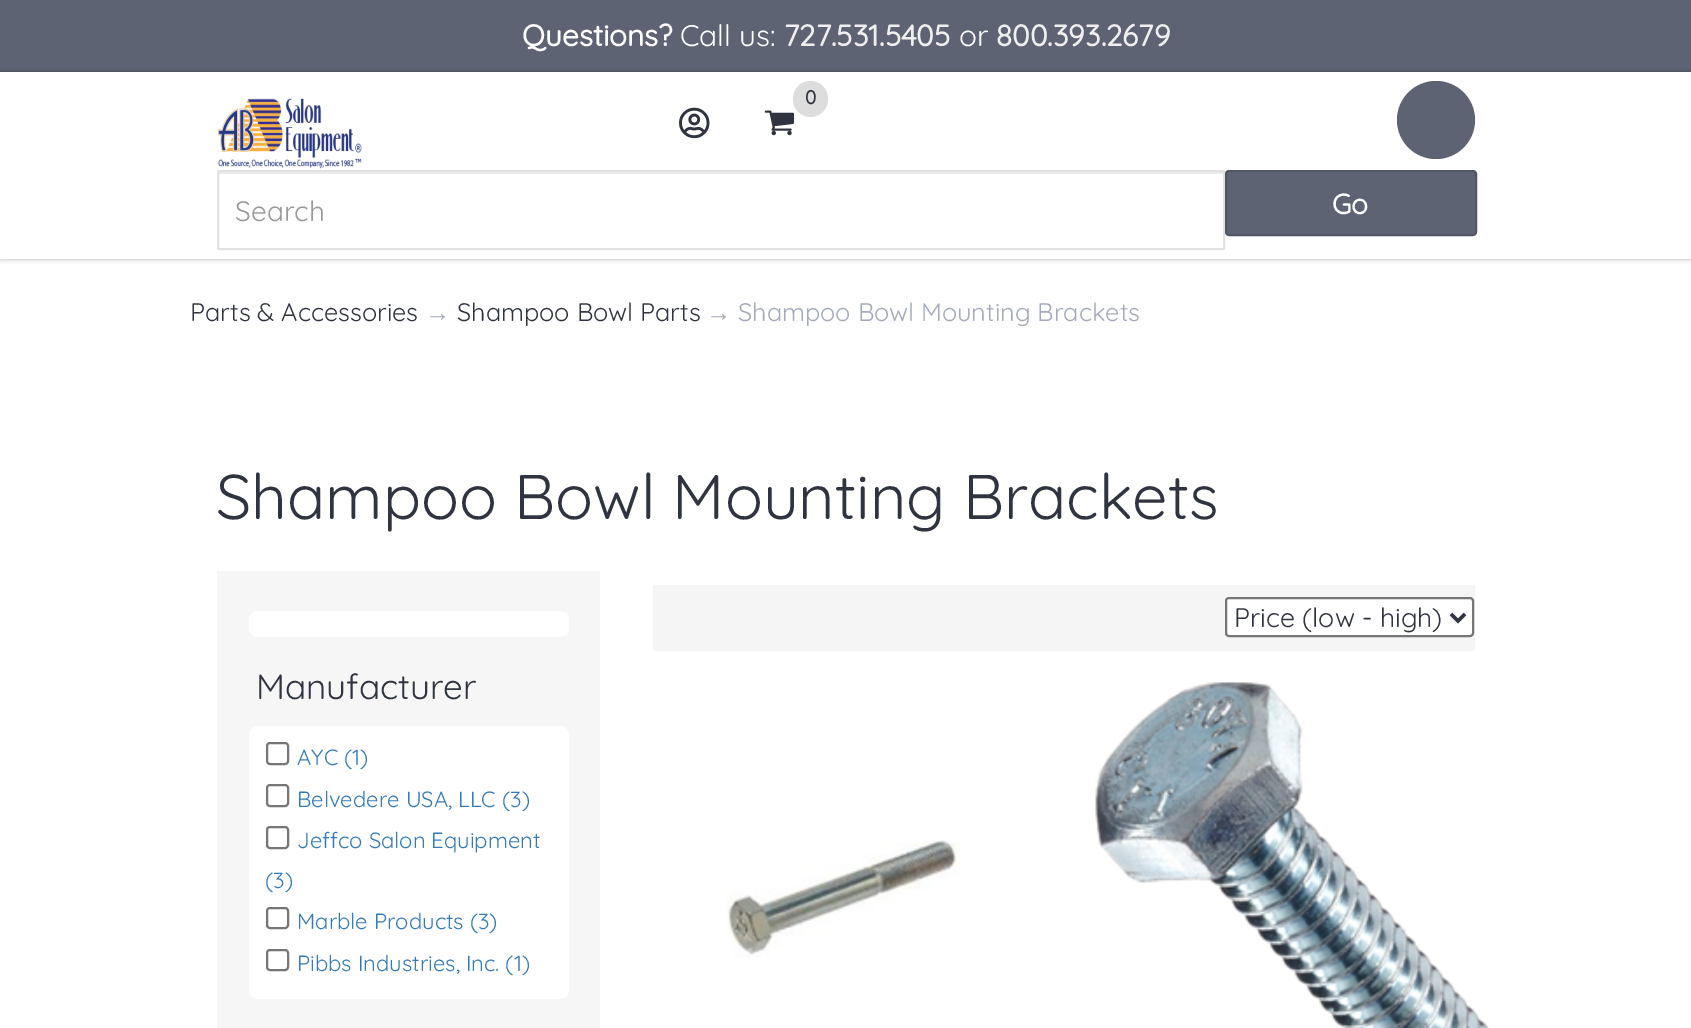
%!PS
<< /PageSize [1691 1028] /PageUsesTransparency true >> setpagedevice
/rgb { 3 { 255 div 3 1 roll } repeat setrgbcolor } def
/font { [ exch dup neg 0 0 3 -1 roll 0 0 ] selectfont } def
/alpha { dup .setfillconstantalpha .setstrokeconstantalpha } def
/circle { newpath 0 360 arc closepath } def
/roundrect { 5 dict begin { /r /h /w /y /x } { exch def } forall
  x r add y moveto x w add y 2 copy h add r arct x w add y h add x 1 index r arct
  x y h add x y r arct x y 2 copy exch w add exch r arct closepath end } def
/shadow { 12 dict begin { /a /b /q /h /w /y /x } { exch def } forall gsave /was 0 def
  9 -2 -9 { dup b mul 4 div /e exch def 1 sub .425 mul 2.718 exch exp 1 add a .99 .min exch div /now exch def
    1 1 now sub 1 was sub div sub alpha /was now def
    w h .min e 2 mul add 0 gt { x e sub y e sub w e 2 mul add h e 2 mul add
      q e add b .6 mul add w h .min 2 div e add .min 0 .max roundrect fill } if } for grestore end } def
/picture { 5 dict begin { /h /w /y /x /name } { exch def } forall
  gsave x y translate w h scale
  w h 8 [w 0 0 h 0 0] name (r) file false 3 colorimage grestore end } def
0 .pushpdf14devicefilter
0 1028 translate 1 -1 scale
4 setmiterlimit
255 255 255 rgb
0 0 1691 1028 rectfill
94 99 115 rgb
0 0 1691 72 rectfill
gsave
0 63 moveto 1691 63 lineto 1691 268 lineto 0 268 lineto closepath 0 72 moveto 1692 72 lineto 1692 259 lineto 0 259 lineto closepath eoclip newpath
0 0 0 rgb
0 72 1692 187 0 2.5 0.3 shadow
grestore
(img/1.rgb) 217 98 145 71 picture
(img/2.rgb) 764 110 30 26 picture
221 221 221 rgb
793 81 35 36 17.5 roundrect fill
94 99 115 rgb
1436 120 39 circle fill
(img/3.rgb) 679 107 31 32 picture
236 236 236 rgb
219 172 1004 2 rectfill
226 226 226 rgb
2 setlinewidth
218 171 1006 78 1 roundrect stroke
94 99 115 rgb
1226 171 250 64 3 roundrect gsave fill grestore
83 87 101 rgb
stroke
245 245 245 rgb
653 585 822 66 rectfill
255 255 255 rgb
1226 598 247 38 3 roundrect gsave fill grestore
118 118 118 rgb
stroke
48 52 64 rgb
3.5 setlinewidth
1451 614 moveto 1458 621 lineto 1465 614 lineto stroke
(img/4.rgb) 726 840 234 118 picture
(img/5.rgb) 1095 681 395 347 picture
246 246 246 rgb
217 571 383 457 rectfill
255 255 255 rgb
249 611 320 26 9 roundrect fill
249 726 320 273 9 roundrect fill
118 118 118 rgb
2 setlinewidth
267 743 21 21 3 roundrect stroke
267 785 21 21 3 roundrect stroke
267 827 21 21 3 roundrect stroke
267 908 21 20 3 roundrect stroke
267 950 21 20 3 roundrect stroke
/Quicksand-Bold 29.75 font
255 255 255 rgb
522 46 moveto (Questions?) show
/Quicksand-Light 29.75 font
680 46 moveto (Call us:) show
/Quicksand-Bold 29.75 font
239 239 239 rgb
784 46 moveto (727.531.5405) show
/Quicksand-Light 29.75 font
255 255 255 rgb
959 46 moveto (or) show
/Quicksand-Bold 29.75 font
239 239 239 rgb
996 46 moveto (800.393.2679) show
/Quicksand-Bold 19 font
48 52 64 rgb
805 104 moveto (0) show
/Quicksand-Light 28 font
153 153 153 rgb
235 221 moveto (Search) show
/Quicksand-Bold 28 font
255 255 255 rgb
1332 214 moveto (Go) show
/Quicksand-Light 25.25 font
48 52 64 rgb
190 321 moveto (Parts & Accessories) show
/LiberationSans-Regular 25.25 font
164 169 187 rgb
425 321 moveto (→) show
/Quicksand-Light 25.25 font
48 52 64 rgb
457 321 moveto (Shampoo Bowl Parts) show
/LiberationSans-Regular 25.25 font
164 169 187 rgb
706 321 moveto (→) show
/Quicksand-Light 25.25 font
738 321 moveto (Shampoo Bowl Mounting Brackets) show
/Quicksand-Light 63 font
48 52 64 rgb
216 519 moveto (Shampoo Bowl Mounting Brackets) show
/Quicksand-Light 26.75 font
1234 627 moveto (Price \(low - high\)) show
/Quicksand-Light 35 font
256 699 moveto (Manufacturer) show
/Quicksand-Light 22 font
51 122 183 rgb
[
  [(AYC \(1\)) 297 765]
  [(Belvedere USA, LLC \(3\)) 297 807]
  [(Jeffco Salon Equipment) 297 848]
  [(\(3\)) 265 888]
  [(Marble Products \(3\)) 297 929]
  [(Pibbs Industries, Inc. \(1\)) 297 971]
] { aload pop moveto show } forall
.poppdf14devicefilter showpage
